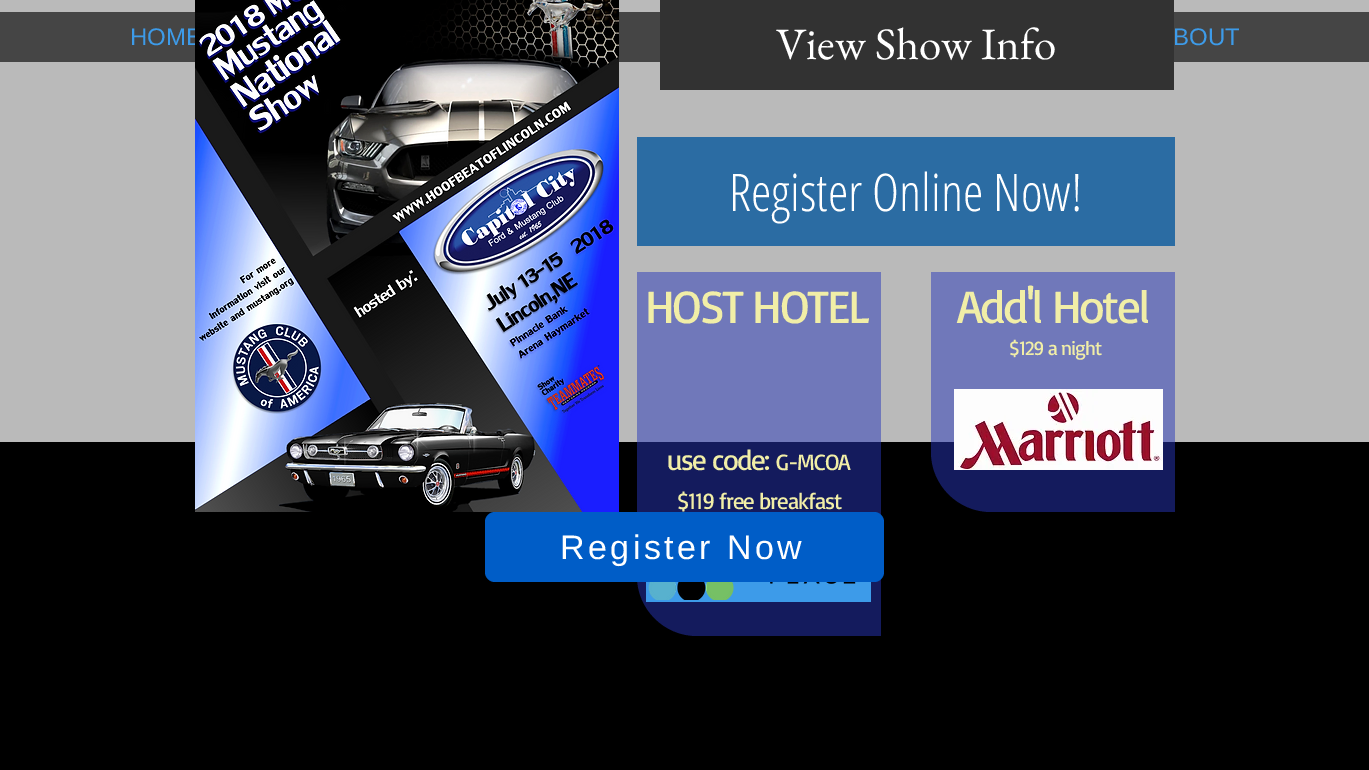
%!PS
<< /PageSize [1369 770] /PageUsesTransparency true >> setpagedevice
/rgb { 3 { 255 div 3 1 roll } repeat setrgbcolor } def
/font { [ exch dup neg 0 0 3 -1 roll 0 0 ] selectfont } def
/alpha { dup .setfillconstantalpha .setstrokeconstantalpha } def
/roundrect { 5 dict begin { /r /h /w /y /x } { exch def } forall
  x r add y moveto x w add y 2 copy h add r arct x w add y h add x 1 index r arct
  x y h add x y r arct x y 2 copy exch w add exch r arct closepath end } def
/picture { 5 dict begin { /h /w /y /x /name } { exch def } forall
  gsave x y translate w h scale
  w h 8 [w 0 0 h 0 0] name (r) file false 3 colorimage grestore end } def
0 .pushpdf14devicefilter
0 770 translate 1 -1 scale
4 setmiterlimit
0 0 0 rgb
0 0 1369 770 rectfill
[
  [0 0 1369 442 186 186 186]
  [0 12 1369 50 69 69 69]
  [660 0 514 90 50 50 50]
  [637 137 538 109 43 108 163]
] { aload pop rgb rectfill } forall
0.5 alpha
39 54 186 rgb
637 272 moveto 881 272 lineto 881 636 lineto 697 636 lineto 664 636 637 609 637 576 curveto closepath fill
1 alpha
61 155 233 rgb
646 582 225 20 rectfill
(img/2.rgb) 648 582 208 18 picture
0.5 alpha
39 54 186 rgb
931 272 moveto 1175 272 lineto 1175 512 lineto 991 512 lineto 958 512 931 485 931 452 curveto closepath fill
1 alpha
(img/3.rgb) 954 389 209 81 picture
0 93 199 rgb
485 512 399 70 10 roundrect fill
/EBGaramond-Regular 45 font
255 255 255 rgb
776 59 moveto (View Show Info) show
/OpenSansCondensed-Light 52 font
729 211 moveto (Register Online Now!) show
/Basic-Regular 47 font
241 238 167 rgb
645 323 moveto -2.4 0 (HOST HOTEL) ashow
/Basic-Regular 29 font
667 470 moveto -1.5 0 (use code:) ashow
/Basic-Regular 23 font
776 470 moveto -1.1 0 (G-MCOA) ashow
677 509 moveto -1.1 0 ($119 free breakfast) ashow
/Basic-Regular 47 font
957 323 moveto -2.4 0 (Add'l Hotel) ashow
/Basic-Regular 20 font
1009 355 moveto -1 0 ($129 a night) ashow
/LiberationSans-Regular 24 font
61 155 233 rgb
130 45 moveto (HOME) show
(img/1.rgb) 195 0 424 512 picture
1173 45 moveto (BOUT) show
/LiberationSans-Regular 34 font
255 255 255 rgb
560 559 moveto 3.4 0 (Register Now) ashow
.poppdf14devicefilter showpage
